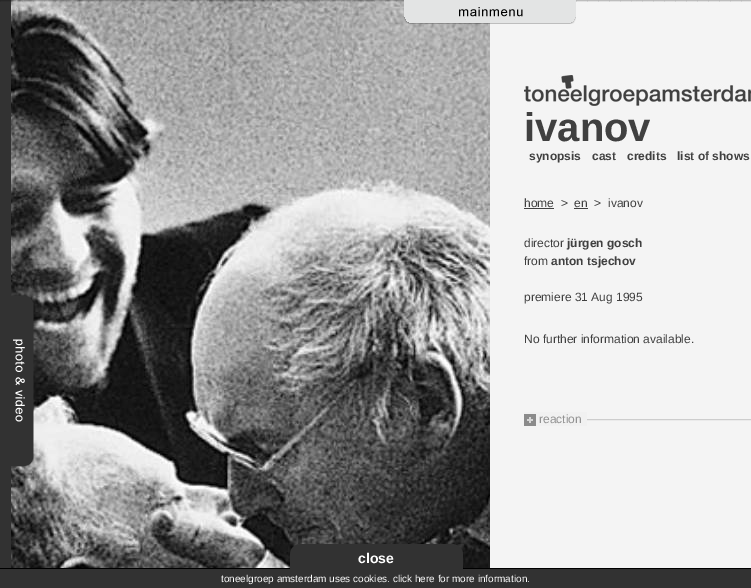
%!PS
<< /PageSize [751 588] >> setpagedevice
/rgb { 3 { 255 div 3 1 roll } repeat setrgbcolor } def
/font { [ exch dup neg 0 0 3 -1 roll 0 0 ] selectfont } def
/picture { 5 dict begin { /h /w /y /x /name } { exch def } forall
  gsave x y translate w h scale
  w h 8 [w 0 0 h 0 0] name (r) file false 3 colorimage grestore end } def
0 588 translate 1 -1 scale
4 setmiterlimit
244 244 244 rgb
0 0 751 588 rectfill
50 50 50 rgb
0 0 11 588 rectfill
(img/5.rgb) 11 0 479 568 picture
(img/1.rgb) 0 0 404 2 picture
(img/2.rgb) 404 0 172 24 picture
(img/3.rgb) 576 0 175 2 picture
(img/4.rgb) 11 295 23 172 picture
(img/6.rgb) 524 75 227 31 picture
64 64 64 rgb
524 208 30 1 rectfill
574 208 14 1 rectfill
(img/7.rgb) 587 419 164 2 picture
241 241 241 rgb
524 412 63 14 rectfill
(img/8.rgb) 524 414 12 12 picture
0 0 0 rgb
0 568 751 1 rectfill
(img/9.rgb) 290 544 173 25 picture
50 50 50 rgb
11 569 740 19 rectfill
/LiberationSans-Bold 40 font
64 64 64 rgb
524 141 moveto (ivanov) show
/LiberationSans-Bold 12 font
[
  [(synopsis) 529 160]
  [(cast) 592 160]
  [(credits) 627 160]
  [(list of shows) 677 160]
] { aload pop moveto show } forall
/LiberationSans-Regular 12 font
[
  [(home) 524 207]
  [(>) 561 207]
  [(en) 574 207]
  [(>) 594 207]
  [(ivanov) 608 207]
  [(director) 524 247]
] { aload pop moveto show } forall
/LiberationSans-Bold 12 font
567 247 moveto (jürgen gosch) show
/LiberationSans-Regular 12 font
524 265 moveto (from) show
/LiberationSans-Bold 12 font
551 265 moveto (anton tsjechov) show
/LiberationSans-Regular 12 font
524 301 moveto (premiere 31 Aug 1995) show
524 343 moveto (No further information available.) show
146 146 146 rgb
539 423 moveto (reaction) show
/LiberationSans-Bold 14 font
255 255 255 rgb
358 563 moveto (close) show
/LiberationSans-Regular 10 font
221 582 moveto (toneelgroep amsterdam uses cookies. click here for more information.) show
showpage
